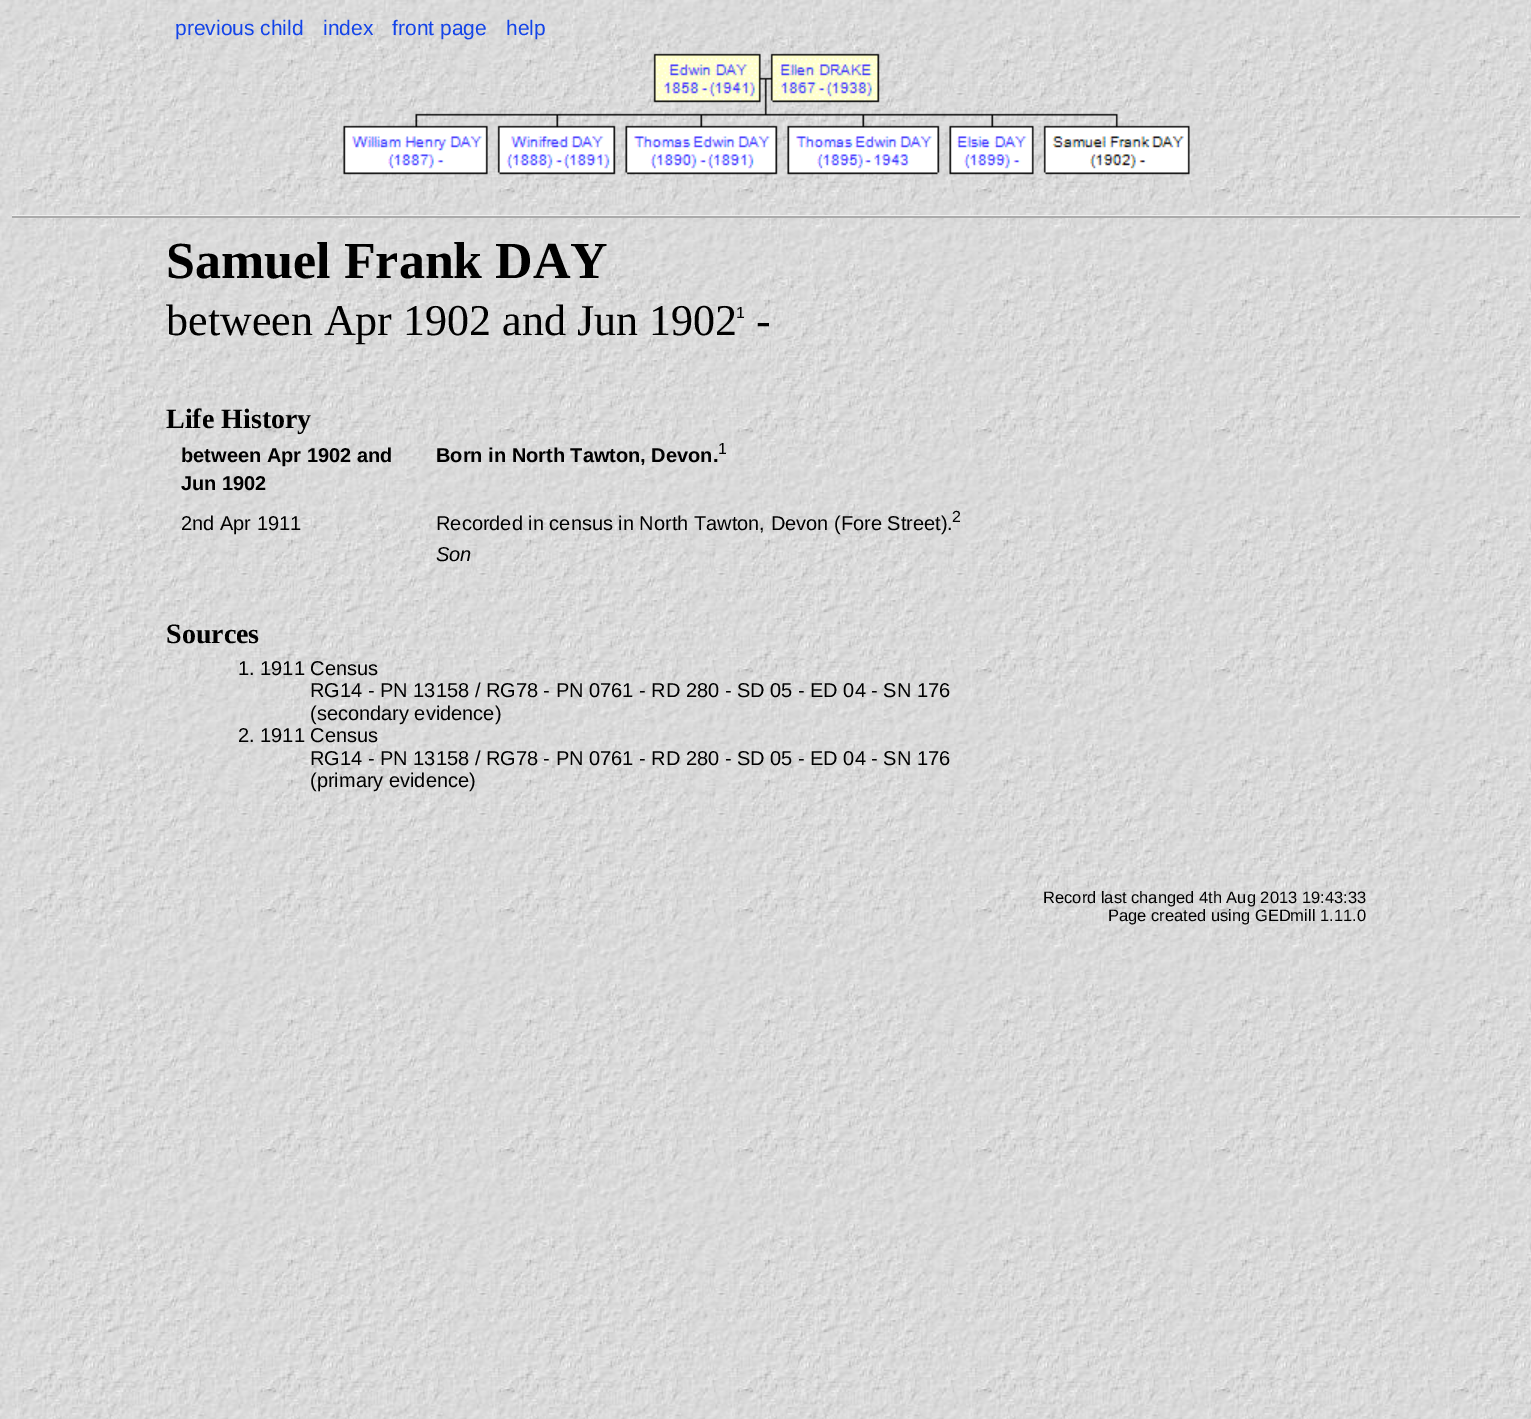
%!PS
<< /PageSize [1531 1419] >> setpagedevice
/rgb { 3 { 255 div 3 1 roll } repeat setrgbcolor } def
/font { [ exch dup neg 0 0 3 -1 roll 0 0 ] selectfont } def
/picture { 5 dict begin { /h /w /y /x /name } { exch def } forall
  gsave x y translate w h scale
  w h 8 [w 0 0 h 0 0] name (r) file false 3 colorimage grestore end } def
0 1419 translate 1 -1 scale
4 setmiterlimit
255 255 255 rgb
0 0 1531 1419 rectfill
(img/1.rgb) 0 0 1531 1419 picture
(img/2.rgb) 343 53 847 122 picture
238 238 238 rgb
12 215 1508 1 rectfill
170 170 170 rgb
12 216 1508 2 rectfill
/LiberationSans-Regular 21 font
19 68 233 rgb
[
  [(previous child) 175 35]
  [(index) 323 35]
  [(front page) 392 35]
  [(help) 506 35]
] { aload pop moveto show } forall
/LiberationSerif-Bold 52 font
0 0 0 rgb
166 278 moveto (Samuel Frank DAY) show
/LiberationSerif-Regular 44 font
166 335 moveto (between Apr 1902 and Jun 1902) show
/LiberationSans-Regular 16 font
736 318 moveto (1) show
/LiberationSerif-Regular 44 font
756 335 moveto (-) show
/LiberationSerif-Bold 28 font
166 428 moveto (Life History) show
/LiberationSans-Bold 20 font
[
  [(between Apr 1902 and) 181 462]
  [(Jun 1902) 181 490]
  [(Born in North Tawton, Devon.) 436 462]
] { aload pop moveto show } forall
/LiberationSans-Regular 16 font
718 454 moveto (1) show
/LiberationSans-Regular 20 font
181 530 moveto (2nd Apr 1911) show
436 530 moveto (Recorded in census in North Tawton, Devon \(Fore Street\).) show
/LiberationSans-Regular 16 font
952 522 moveto (2) show
/LiberationSans-Italic 20 font
436 561 moveto (Son) show
/LiberationSerif-Bold 28 font
166 643 moveto (Sources) show
/LiberationSans-Regular 20 font
[
  [(1. 1911 Census) 238 675]
  [(RG14 - PN 13158 / RG78 - PN 0761 - RD 280 - SD 05 - ED 04 - SN 176) 310 697]
  [(\(secondary evidence\)) 310 720]
  [(2. 1911 Census) 238 742]
  [(RG14 - PN 13158 / RG78 - PN 0761 - RD 280 - SD 05 - ED 04 - SN 176) 310 765]
  [(\(primary evidence\)) 310 787]
] { aload pop moveto show } forall
/LiberationSans-Regular 16.5 font
1043 903 moveto (Record last changed 4th Aug 2013 19:43:33) show
1108 921 moveto (Page created using GEDmill 1.11.0) show
showpage
